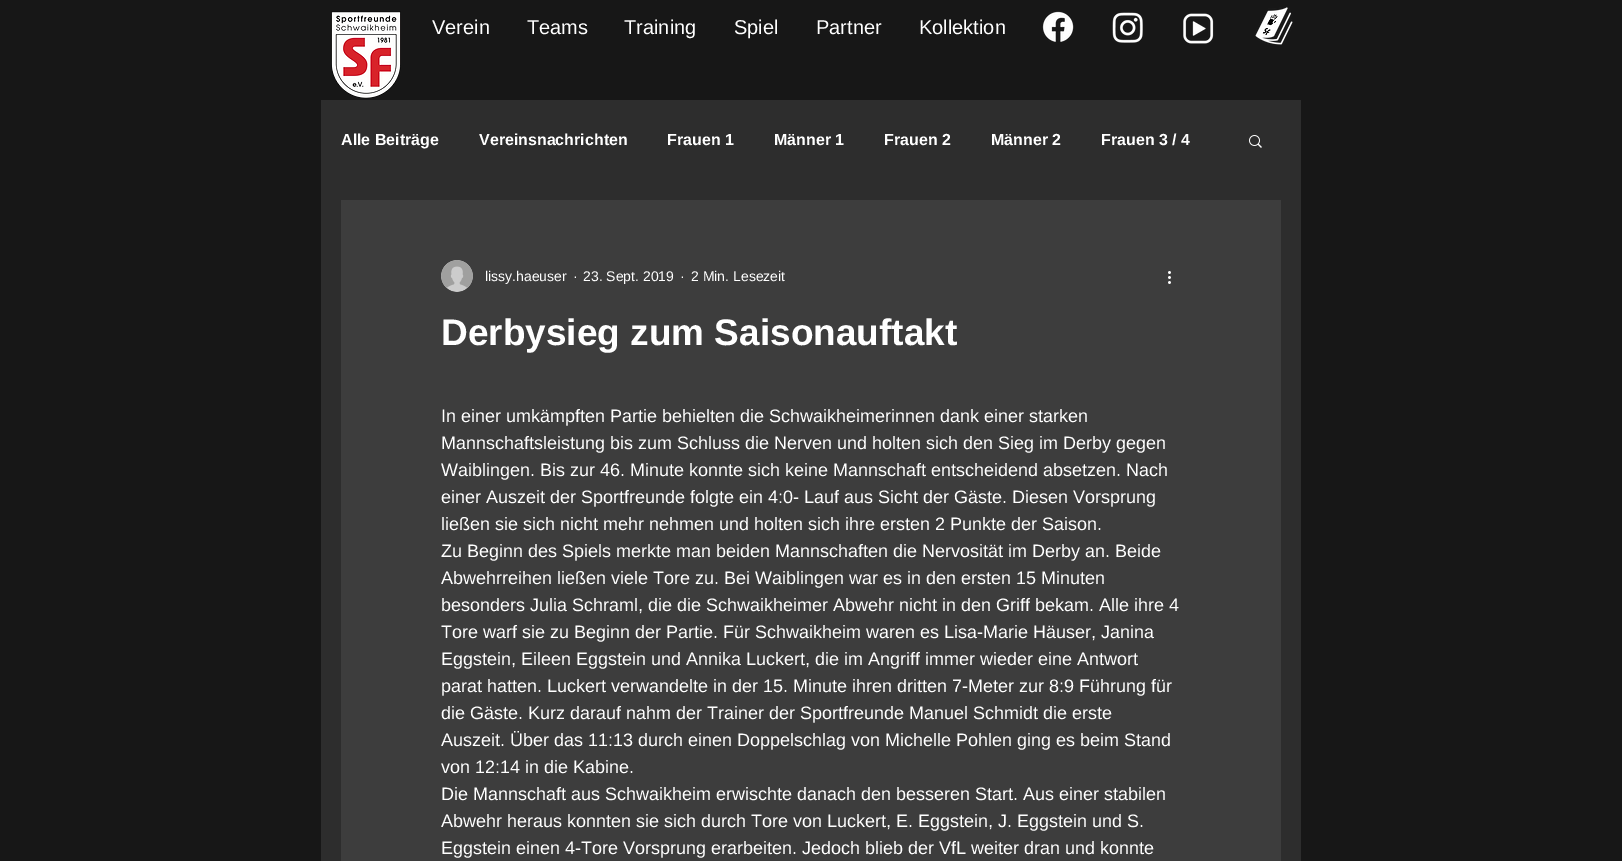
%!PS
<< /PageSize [1622 861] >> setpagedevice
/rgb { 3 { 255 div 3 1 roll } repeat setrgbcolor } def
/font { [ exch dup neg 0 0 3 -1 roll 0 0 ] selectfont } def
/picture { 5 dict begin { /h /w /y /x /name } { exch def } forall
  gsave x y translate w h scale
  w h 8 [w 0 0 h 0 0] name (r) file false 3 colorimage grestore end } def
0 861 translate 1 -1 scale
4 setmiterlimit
23 23 23 rgb
0 0 1622 861 rectfill
(img/1.rgb) 331 11 70 88 picture
(img/2.rgb) 1042 11 32 31 picture
(img/3.rgb) 1112 12 31 31 picture
(img/4.rgb) 1183 13 31 31 picture
(img/5.rgb) 1255 7 38 38 picture
45 45 45 rgb
321 100 980 761 rectfill
(img/6.rgb) 1249 135 13 13 picture
61 61 61 rgb
341 200 940 661 rectfill
(img/7.rgb) 441 260 32 32 picture
(img/8.rgb) 1168 271 3 13 picture
/LiberationSans-Regular 20 font
255 255 255 rgb
[
  [(Verein) 432 34]
  [(Teams) 527 34]
  [(Training) 624 34]
  [(Spiel) 734 34]
  [(Partner) 816 34]
  [(Kollektion) 919 34]
] { aload pop moveto show } forall
/LiberationSans-Bold 16 font
[
  [(Alle Beiträge) 341 145]
  [(Vereinsnachrichten) 479 145]
  [(Frauen 1) 667 145]
  [(Männer 1) 774 145]
  [(Frauen 2) 884 145]
  [(Männer 2) 991 145]
  [(Frauen 3 / 4) 1101 145]
] { aload pop moveto show } forall
/LiberationSans-Regular 14 font
[
  [(lissy.haeuser) 485 281]
  [(·) 573 281]
  [(23. Sept. 2019) 583 281]
  [(·) 680 281]
  [(2 Min. Lesezeit) 691 281]
] { aload pop moveto show } forall
/LiberationSans-Bold 37 font
441 345 moveto (Derbysieg zum Saisonauftakt) show
/LiberationSans-Regular 18 font
[
  [(In einer umkämpften Partie behielten die Schwaikheimerinnen dank einer starken) 441 422]
  [(Mannschaftsleistung bis zum Schluss die Nerven und holten sich den Sieg im Derby gegen) 441 449]
  [(Waiblingen. Bis zur 46. Minute konnte sich keine Mannschaft entscheidend absetzen. Nach) 441 476]
  [(einer Auszeit der Sportfreunde folgte ein 4:0- Lauf aus Sicht der Gäste. Diesen Vorsprung) 441 503]
  [(ließen sie sich nicht mehr nehmen und holten sich ihre ersten 2 Punkte der Saison.) 441 530]
  [(Zu Beginn des Spiels merkte man beiden Mannschaften die Nervosität im Derby an. Beide) 441 557]
  [(Abwehrreihen ließen viele Tore zu. Bei Waiblingen war es in den ersten 15 Minuten) 441 584]
  [(besonders Julia Schraml, die die Schwaikheimer Abwehr nicht in den Griff bekam. Alle ihre 4) 441 611]
  [(Tore warf sie zu Beginn der Partie. Für Schwaikheim waren es Lisa-Marie Häuser, Janina) 441 638]
  [(Eggstein, Eileen Eggstein und Annika Luckert, die im Angriff immer wieder eine Antwort) 441 665]
  [(parat hatten. Luckert verwandelte in der 15. Minute ihren dritten 7-Meter zur 8:9 Führung für) 441 692]
  [(die Gäste. Kurz darauf nahm der Trainer der Sportfreunde Manuel Schmidt die erste) 441 719]
  [(Auszeit. Über das 11:13 durch einen Doppelschlag von Michelle Pohlen ging es beim Stand) 441 746]
  [(von 12:14 in die Kabine.) 441 773]
  [(Die Mannschaft aus Schwaikheim erwischte danach den besseren Start. Aus einer stabilen) 441 800]
  [(Abwehr heraus konnten sie sich durch Tore von Luckert, E. Eggstein, J. Eggstein und S.) 441 827]
  [(Eggstein einen 4-Tore Vorsprung erarbeiten. Jedoch blieb der VfL weiter dran und konnte) 441 854]
] { aload pop moveto show } forall
showpage
